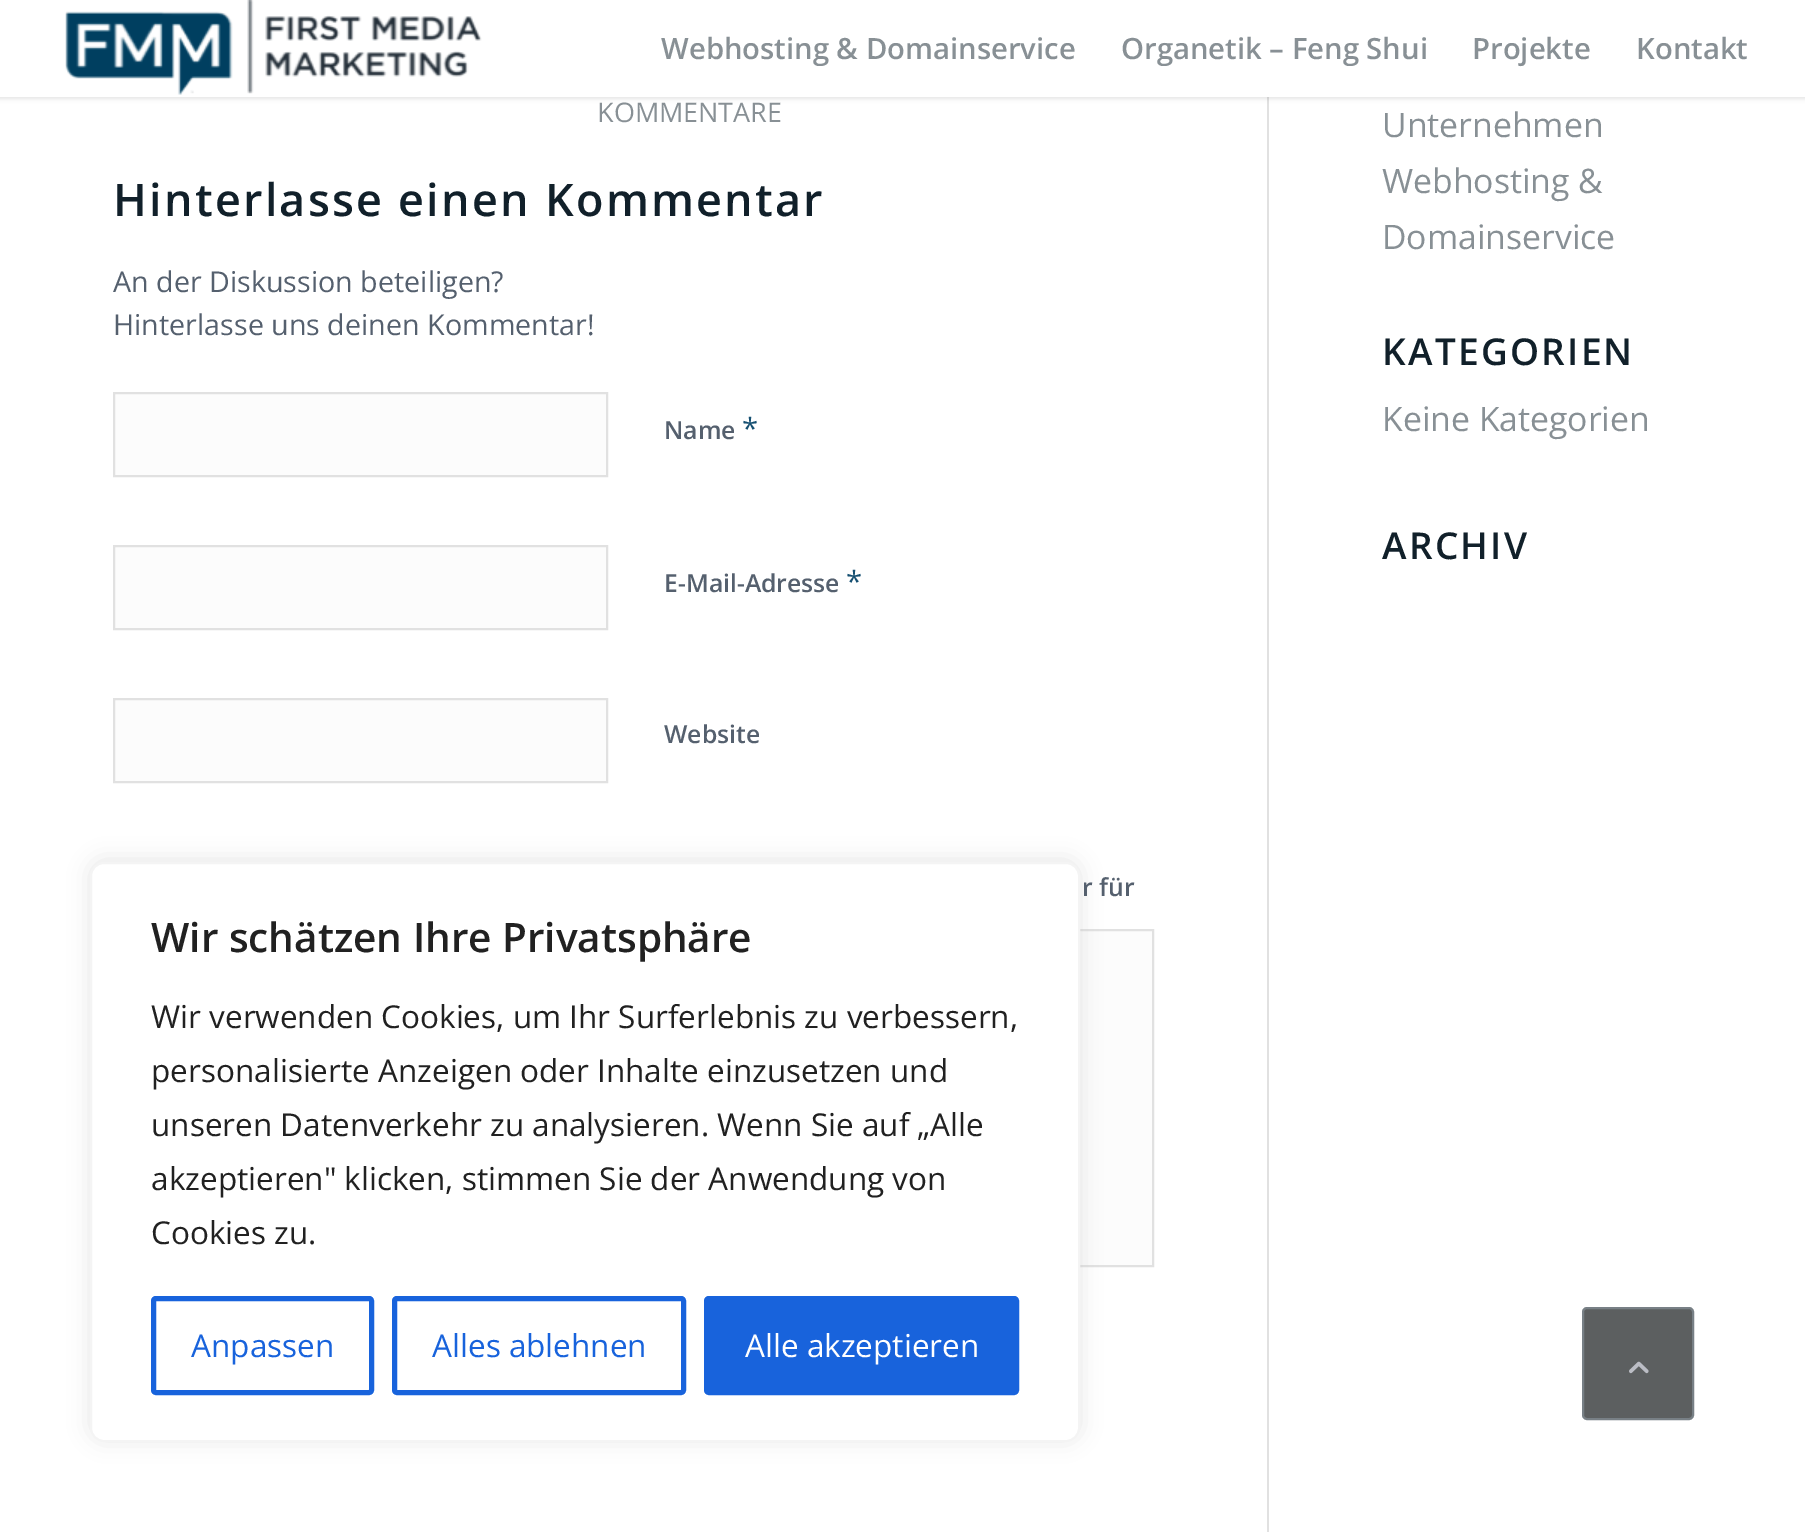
%!PS
<< /PageSize [1805 1532] /PageUsesTransparency true >> setpagedevice
/rgb { 3 { 255 div 3 1 roll } repeat setrgbcolor } def
/font { [ exch dup neg 0 0 3 -1 roll 0 0 ] selectfont } def
/alpha { dup .setfillconstantalpha .setstrokeconstantalpha } def
/roundrect { 5 dict begin { /r /h /w /y /x } { exch def } forall
  x r add y moveto x w add y 2 copy h add r arct x w add y h add x 1 index r arct
  x y h add x y r arct x y 2 copy exch w add exch r arct closepath end } def
/shadow { 12 dict begin { /a /b /q /h /w /y /x } { exch def } forall gsave /was 0 def
  9 -2 -9 { dup b mul 4 div /e exch def 1 sub .425 mul 2.718 exch exp 1 add a .99 .min exch div /now exch def
    1 1 now sub 1 was sub div sub alpha /was now def
    w h .min e 2 mul add 0 gt { x e sub y e sub w e 2 mul add h e 2 mul add
      q e add b .6 mul add w h .min 2 div e add .min 0 .max roundrect fill } if } for grestore end } def
/picture { 5 dict begin { /h /w /y /x /name } { exch def } forall
  gsave x y translate w h scale
  w h 8 [w 0 0 h 0 0] name (r) file false 3 colorimage grestore end } def
0 .pushpdf14devicefilter
0 1532 translate 1 -1 scale
4 setmiterlimit
255 255 255 rgb
0 0 1805 1532 rectfill
225 225 225 rgb
1267 97 2 1435 rectfill
0 0 0 rgb
-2 -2 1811 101 0 2 0.1 shadow
255 255 255 rgb
0 0 1805 97 rectfill
(img/1.rgb) 65 0 417 95 picture
252 252 252 rgb
114 393 moveto 607 393 lineto 607 476 lineto 114 476 lineto closepath gsave fill grestore
225 225 225 rgb
2 setlinewidth
stroke
252 252 252 rgb
114 546 moveto 607 546 lineto 607 629 lineto 114 629 lineto closepath gsave fill grestore
225 225 225 rgb
stroke
252 252 252 rgb
114 699 moveto 607 699 lineto 607 782 lineto 114 782 lineto closepath gsave fill grestore
225 225 225 rgb
stroke
252 252 252 rgb
1080 931 72 334 rectfill
225 225 225 rgb
114 930 1039 336 rectstroke
172 171 171 rgb
90 860 990 580 14 11 0.3 shadow
255 255 255 rgb
91 863 988 578 13 roundrect gsave fill grestore
244 244 244 rgb
stroke
24 99 220 rgb
5 setlinewidth
153.5 1298.5 218 94 2.5 roundrect stroke
394.5 1298.5 289 94 2.5 roundrect stroke
706.5 1298.5 310 94 2.5 roundrect gsave fill grestore
stroke
92 95 96 rgb
1583 1308 110 111 4 roundrect gsave fill grestore
120 128 134 rgb
2 setlinewidth
stroke
(img/2.rgb) 1629 1361 20 13 picture
/OpenSans-SemiBold 29.25 font
136 144 149 rgb
[
  [(Webhosting & Domainservice) 661 59]
  [(Organetik – Feng Shui) 1121 59]
  [(Projekte) 1472 59]
  [(Kontakt) 1636 59]
] { aload pop moveto show } forall
/OpenSans-Regular 27 font
597 122 moveto (KOMMENTARE) show
/OpenSans-SemiBold 45 font
17 32 42 rgb
113 216 moveto 2.25 0 (Hinterlasse einen Kommentar) ashow
/OpenSans-Regular 28.7 font
85 96 110 rgb
113 292 moveto (An der Diskussion beteiligen?) show
113 335 moveto (Hinterlasse uns deinen Kommentar!) show
/OpenSans-SemiBold 24.75 font
664 439 moveto (Name) show
/OpenSans-Regular 29.25 font
22 80 114 rgb
742 439 moveto (*) show
/OpenSans-SemiBold 24.75 font
85 96 110 rgb
664 592 moveto (E-Mail-Adresse) show
/OpenSans-Regular 29.25 font
22 80 114 rgb
846 592 moveto (*) show
/OpenSans-SemiBold 24.75 font
85 96 110 rgb
664 743 moveto (Website) show
1082 896 moveto (r für) show
/OpenSans-Regular 33.75 font
136 144 149 rgb
[
  [(Unternehmen) 1382 137]
  [(Webhosting &) 1382 193]
  [(Domainservice) 1382 249]
] { aload pop moveto show } forall
/OpenSans-SemiBold 37 font
17 32 42 rgb
1382 365 moveto 2.25 0 (KATEGORIEN) ashow
/OpenSans-Regular 33.75 font
136 144 149 rgb
1382 431 moveto (Keine Kategorien) show
/OpenSans-SemiBold 37 font
17 32 42 rgb
1382 559 moveto 2.25 0 (ARCHIV) ashow
/OpenSans-SemiBold 40.5 font
33 33 33 rgb
151 952 moveto (Wir schätzen Ihre Privatsphäre) show
/OpenSans-Regular 31.5 font
[
  [(Wir verwenden Cookies, um Ihr Surferlebnis zu verbessern,) 151 1028]
  [(personalisierte Anzeigen oder Inhalte einzusetzen und) 151 1082]
  [(unseren Datenverkehr zu analysieren. Wenn Sie auf „Alle) 151 1136]
  [(akzeptieren" klicken, stimmen Sie der Anwendung von) 151 1190]
  [(Cookies zu.) 151 1244]
] { aload pop moveto show } forall
24 99 220 rgb
191 1357 moveto (Anpassen) show
432 1357 moveto (Alles ablehnen) show
255 255 255 rgb
745 1357 moveto (Alle akzeptieren) show
.poppdf14devicefilter showpage
